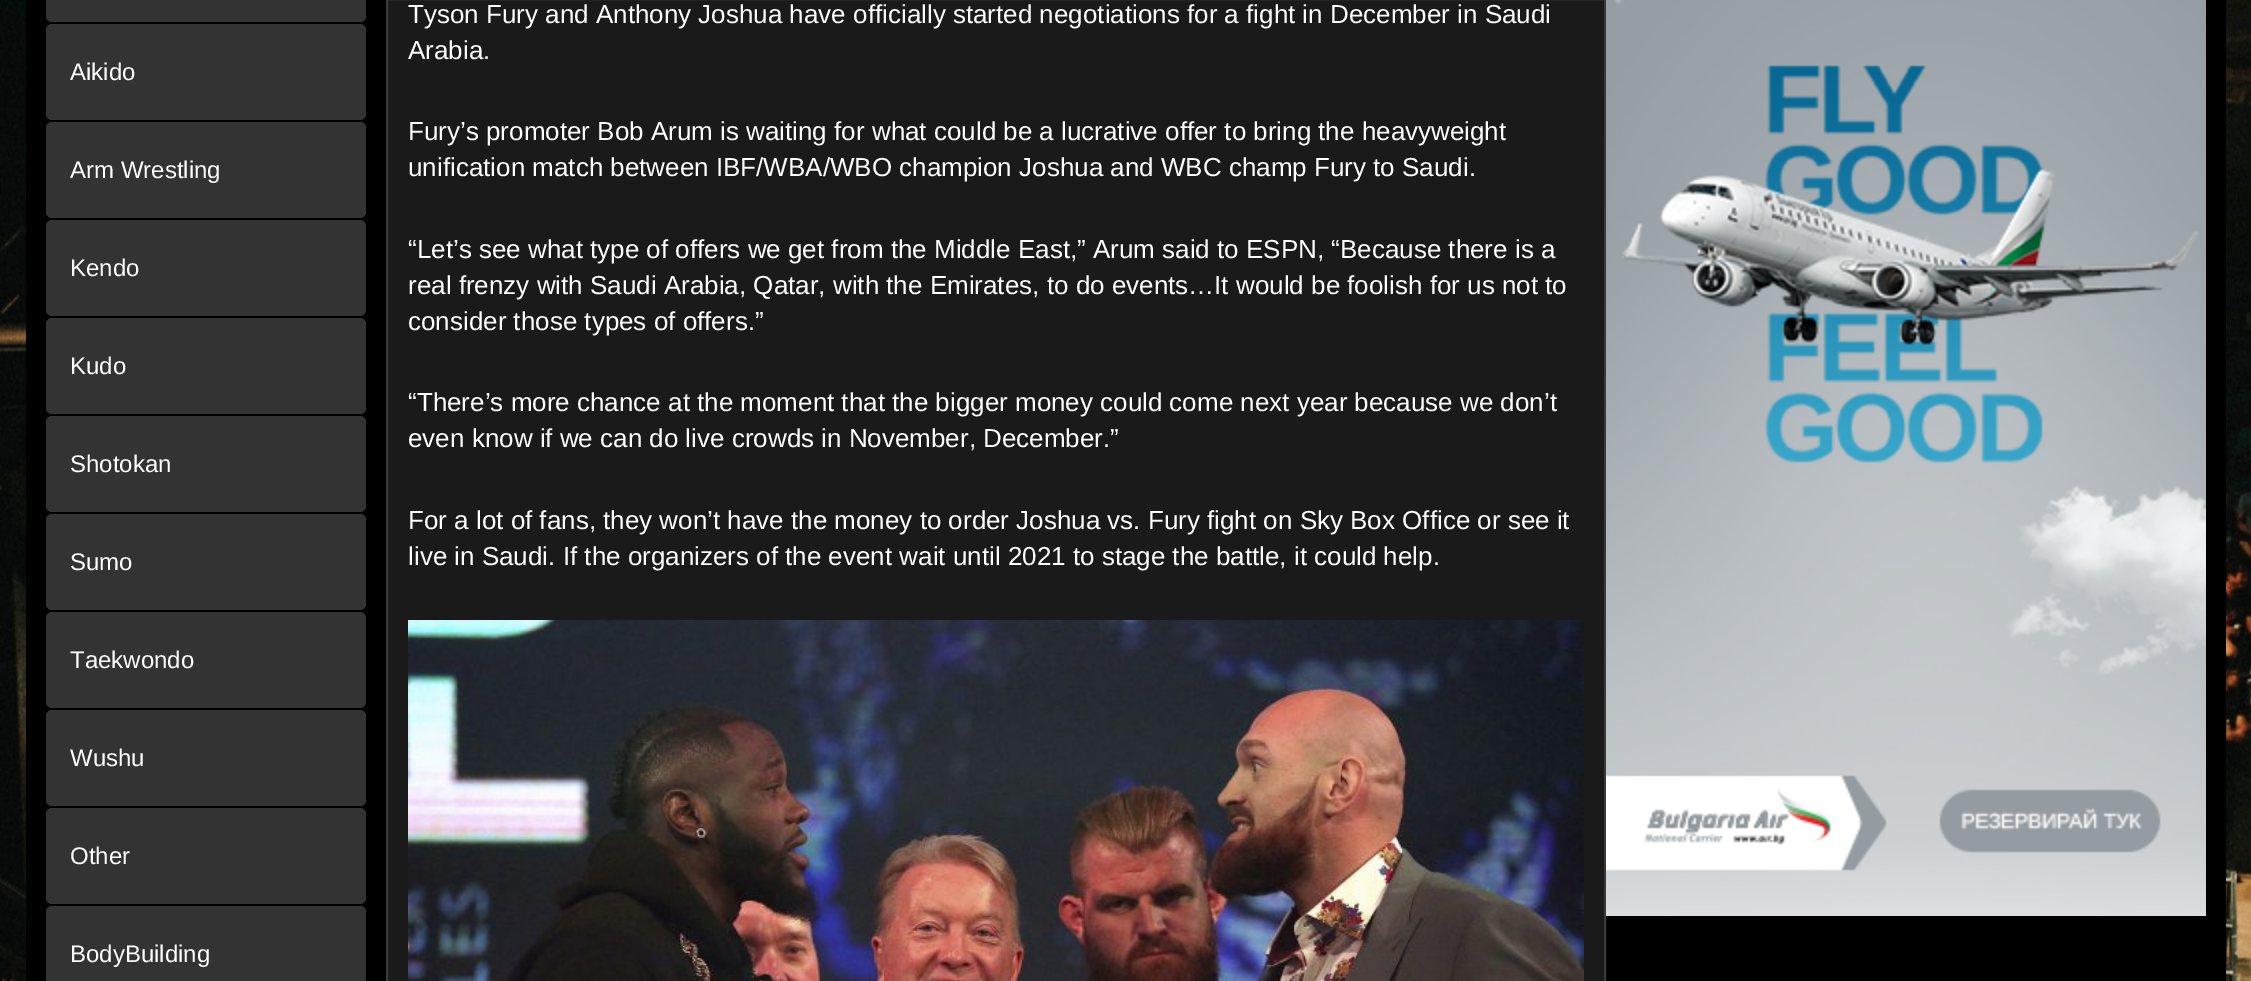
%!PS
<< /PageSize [2251 981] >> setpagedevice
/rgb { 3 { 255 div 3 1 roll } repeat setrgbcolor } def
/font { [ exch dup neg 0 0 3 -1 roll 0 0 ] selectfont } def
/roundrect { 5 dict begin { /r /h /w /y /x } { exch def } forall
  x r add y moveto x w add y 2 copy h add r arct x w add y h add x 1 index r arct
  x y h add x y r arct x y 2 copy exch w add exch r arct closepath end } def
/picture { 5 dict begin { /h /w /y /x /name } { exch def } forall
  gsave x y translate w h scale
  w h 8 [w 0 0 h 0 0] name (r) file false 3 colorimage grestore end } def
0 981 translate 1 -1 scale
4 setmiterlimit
255 255 255 rgb
0 0 2251 981 rectfill
(img/1.rgb) 0 0 2251 981 picture
0 0 0 rgb
26 0 2200 981 rectfill
51 51 51 rgb
46 -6 320 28 6 roundrect fill
46 24 320 96 6 roundrect fill
46 122 320 96 6 roundrect fill
46 220 320 96 6 roundrect fill
46 318 320 96 6 roundrect fill
46 416 320 96 6 roundrect fill
46 514 320 96 6 roundrect fill
46 612 320 96 6 roundrect fill
46 710 320 96 6 roundrect fill
46 808 320 96 6 roundrect fill
46 906 320 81 6 roundrect fill
26 26 26 rgb
387 -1 moveto 1605 -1 lineto 1605 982 lineto 387 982 lineto closepath gsave fill grestore
58 58 58 rgb
2 setlinewidth
stroke
(img/2.rgb) 408 620 1176 361 picture
(img/3.rgb) 1606 0 600 916 picture
/LiberationSans-Regular 24 font
255 255 255 rgb
[
  [(Aikido) 70 80]
  [(Arm Wrestling) 70 178]
  [(Kendo) 70 276]
  [(Kudo) 70 374]
  [(Shotokan) 70 472]
  [(Sumo) 70 570]
  [(Taekwondo) 70 668]
  [(Wushu) 70 766]
  [(Other) 70 864]
  [(BodyBuilding) 70 962]
] { aload pop moveto show } forall
/LiberationSans-Regular 26 font
[
  [(Tyson Fury and Anthony Joshua have officially started negotiations for a fight in December in Saudi) 408 23]
  [(Arabia.) 408 59]
  [(Fury’s promoter Bob Arum is waiting for what could be a lucrative offer to bring the heavyweight) 408 140]
  [(unification match between IBF/WBA/WBO champion Joshua and WBC champ Fury to Saudi.) 408 176]
  [(“Let’s see what type of offers we get from the Middle East,” Arum said to ESPN, “Because there is a) 408 258]
  [(real frenzy with Saudi Arabia, Qatar, with the Emirates, to do events…It would be foolish for us not to) 408 294]
  [(consider those types of offers.”) 408 330]
  [(“There’s more chance at the moment that the bigger money could come next year because we don’t) 408 411]
  [(even know if we can do live crowds in November, December.”) 408 447]
  [(For a lot of fans, they won’t have the money to order Joshua vs. Fury fight on Sky Box Office or see it) 408 529]
  [(live in Saudi. If the organizers of the event wait until 2021 to stage the battle, it could help.) 408 565]
] { aload pop moveto show } forall
showpage
